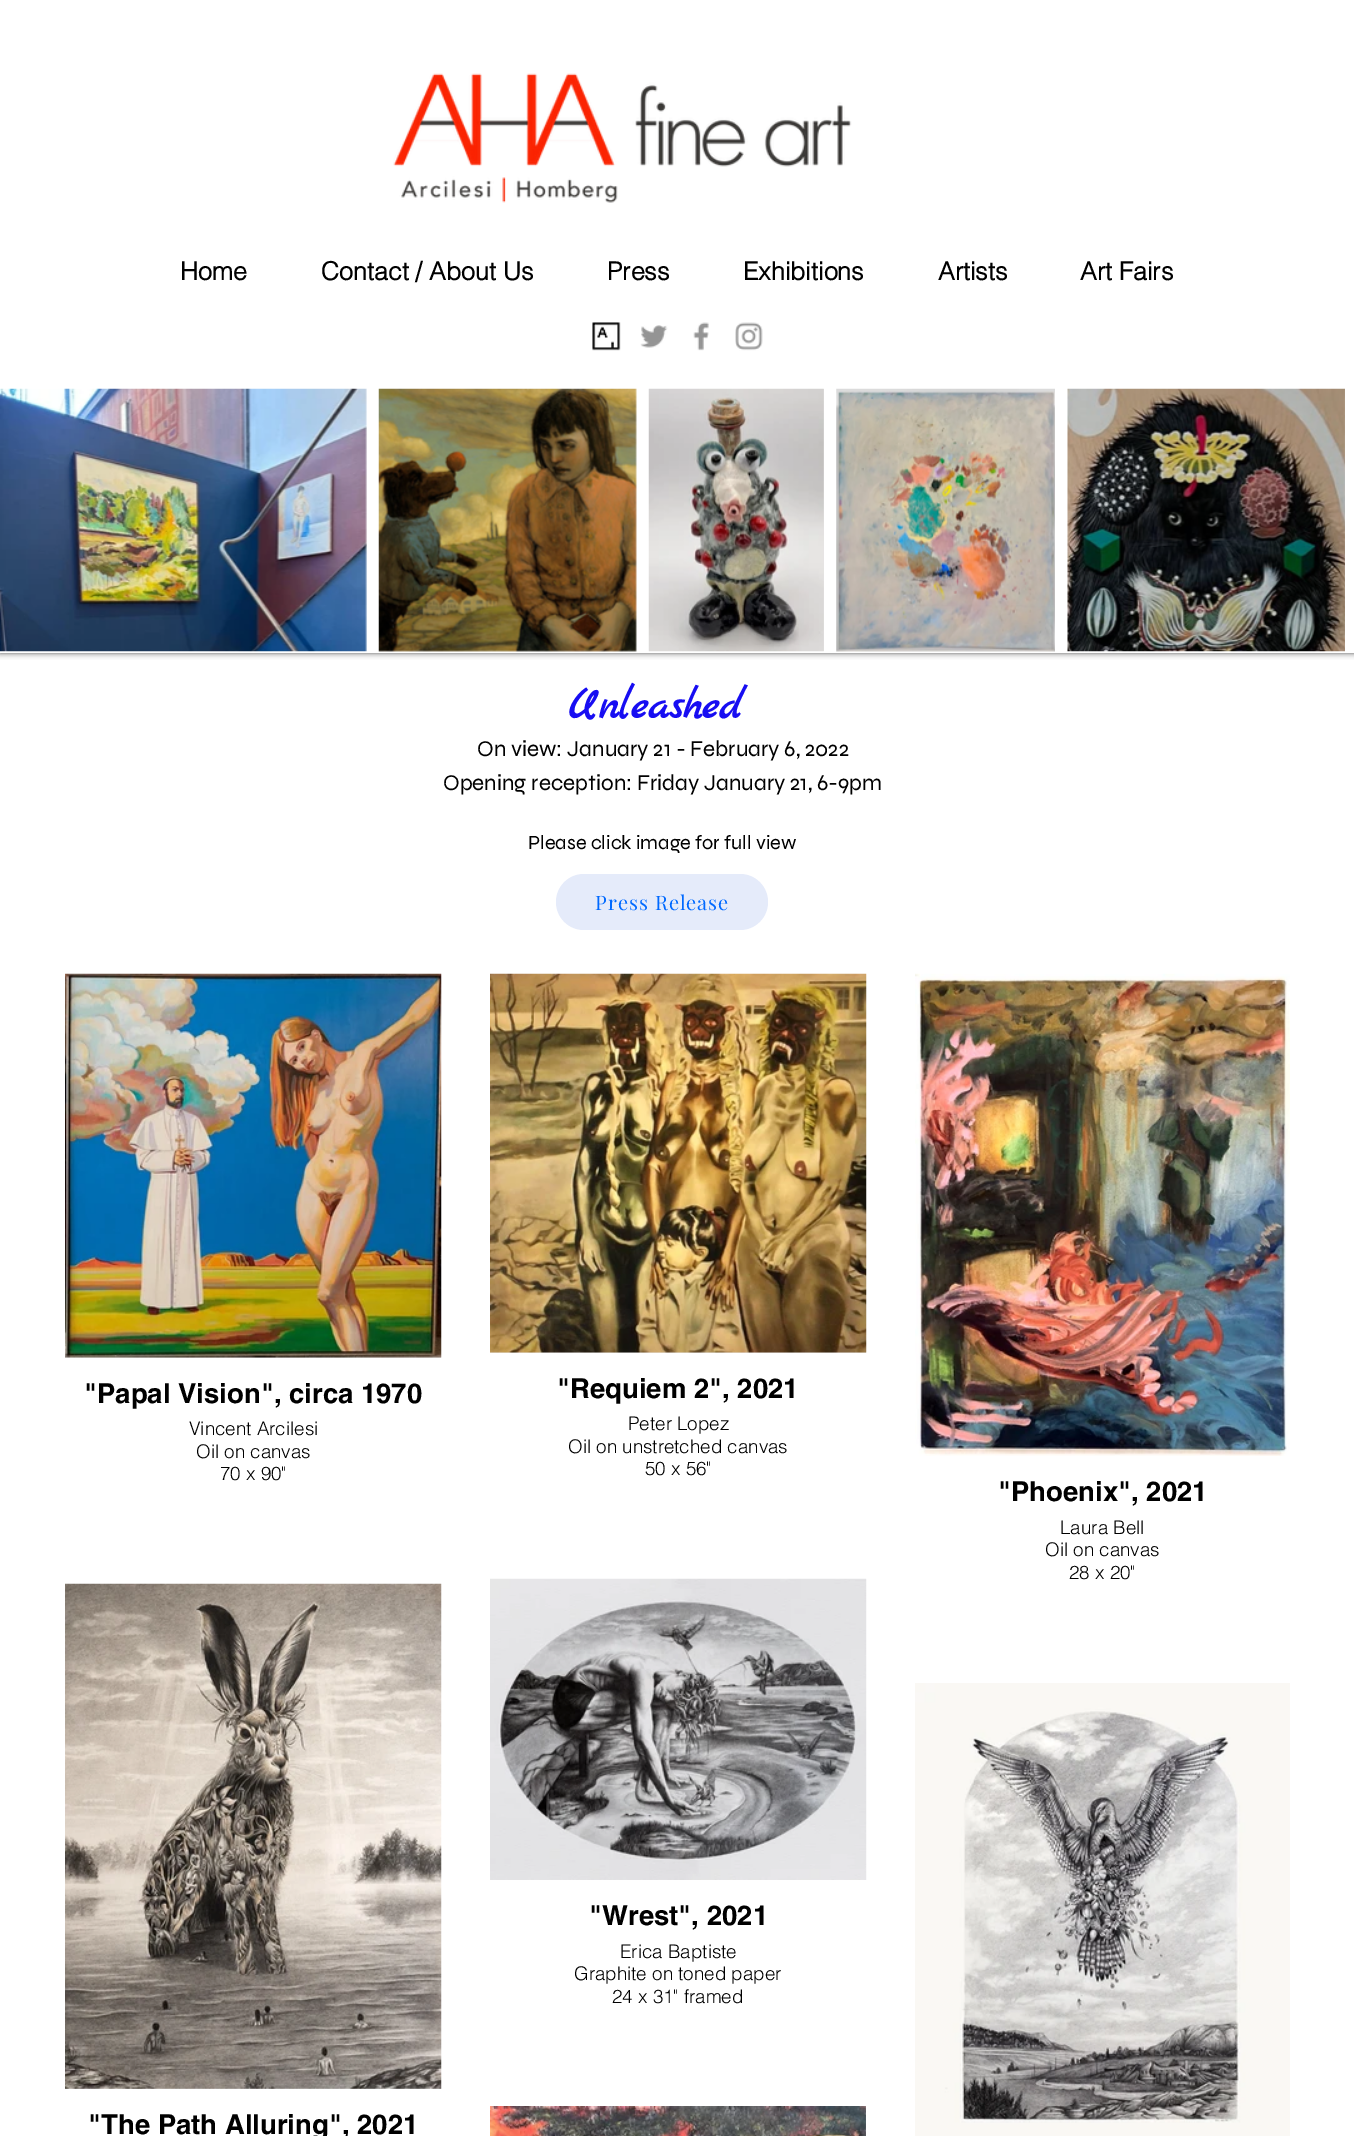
%!PS
<< /PageSize [1354 2136] /PageUsesTransparency true >> setpagedevice
/rgb { 3 { 255 div 3 1 roll } repeat setrgbcolor } def
/font { [ exch dup neg 0 0 3 -1 roll 0 0 ] selectfont } def
/alpha { dup .setfillconstantalpha .setstrokeconstantalpha } def
/roundrect { 5 dict begin { /r /h /w /y /x } { exch def } forall
  x r add y moveto x w add y 2 copy h add r arct x w add y h add x 1 index r arct
  x y h add x y r arct x y 2 copy exch w add exch r arct closepath end } def
/shadow { 12 dict begin { /a /b /q /h /w /y /x } { exch def } forall gsave /was 0 def
  9 -2 -9 { dup b mul 4 div /e exch def 1 sub .425 mul 2.718 exch exp 1 add a .99 .min exch div /now exch def
    1 1 now sub 1 was sub div sub alpha /was now def
    w h .min e 2 mul add 0 gt { x e sub y e sub w e 2 mul add h e 2 mul add
      q e add b .6 mul add w h .min 2 div e add .min 0 .max roundrect fill } if } for grestore end } def
/picture { 5 dict begin { /h /w /y /x /name } { exch def } forall
  gsave x y translate w h scale
  w h 8 [w 0 0 h 0 0] name (r) file false 3 colorimage grestore end } def
0 .pushpdf14devicefilter
0 2136 translate 1 -1 scale
4 setmiterlimit
255 255 255 rgb
0 0 1354 2136 rectfill
0 0 0 rgb
0 0 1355 653 0 3 0.7 shadow
255 255 255 rgb
0 0 1354 653 rectfill
(img/1.rgb) 393 73 459 130 picture
(img/2.rgb) 592 322 29 29 picture
(img/3.rgb) 640 325 28 23 picture
(img/4.rgb) 693 322 16 29 picture
(img/5.rgb) 735 322 28 29 picture
(img/6.rgb) 0 388 367 264 picture
(img/7.rgb) 378 388 259 264 picture
(img/8.rgb) 648 388 176 264 picture
(img/9.rgb) 836 388 219 264 picture
(img/10.rgb) 1067 388 278 264 picture
229 235 250 rgb
556 874 212 56 28 roundrect fill
232 230 230 rgb
65 1357 376 1 rectfill
(img/11.rgb) 65 973 377 385 picture
490 1352 376 1 rectfill
(img/12.rgb) 490 973 377 380 picture
(img/13.rgb) 915 973 375 483 picture
(img/14.rgb) 490 1578 377 302 picture
(img/15.rgb) 915 1683 375 453 picture
(img/16.rgb) 65 1583 377 506 picture
(img/17.rgb) 490 2106 376 30 picture
/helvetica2-Bold 25 font
0 0 0 rgb
[
  [(Home) 180 280]
  [(Contact / About Us) 321 280]
  [(Press) 607 280]
  [(Exhibitions) 743 280]
  [(Artists) 938 280]
  [(Art Fairs) 1080 280]
] { aload pop moveto show } forall
/MarckScript-Bold 44 font
23 13 242 rgb
568 718 moveto (Unleashed) show
/Syne-Regular 22.5 font
0 0 0 rgb
477 756 moveto (On view: January 21 - February 6, 2022) show
443 790 moveto (Opening reception: Friday January 21, 6-9pm) show
/Syne-Regular 20 font
528 849 moveto (Please click image for full view) show
/PlayfairDisplay-Regular 20 font
0 105 255 rgb
595 910 moveto 1 0 (Press Release) ashow
/helvetica-Bold 27.5 font
0 0 0 rgb
84 1403 moveto ("Papal Vision", circa 1970) show
/helvetica-Light 18.75 font
[
  [(Vincent Arcilesi) 189 1435]
  [(Oil on canvas) 196 1458]
  [(70 x 90") 220 1480]
] { aload pop moveto show } forall
/helvetica-Bold 27.5 font
557 1398 moveto ("Requiem 2", 2021) show
/helvetica-Light 18.75 font
[
  [(Peter Lopez) 628 1430]
  [(Oil on unstretched canvas) 568 1453]
  [(50 x 56") 645 1475]
] { aload pop moveto show } forall
/helvetica-Bold 27.5 font
998 1501 moveto ("Phoenix", 2021) show
/helvetica-Light 18.75 font
[
  [(Laura Bell) 1060 1534]
  [(Oil on canvas) 1045 1556]
  [(28 x 20") 1069 1579]
] { aload pop moveto show } forall
/helvetica-Bold 27.5 font
589 1925 moveto ("Wrest", 2021) show
/helvetica-Light 18.75 font
[
  [(Erica Baptiste) 620 1958]
  [(Graphite on toned paper) 574 1980]
  [(24 x 31" framed) 612 2003]
] { aload pop moveto show } forall
/helvetica-Bold 27.5 font
88 2134 moveto ("The Path Alluring", 2021) show
.poppdf14devicefilter showpage
